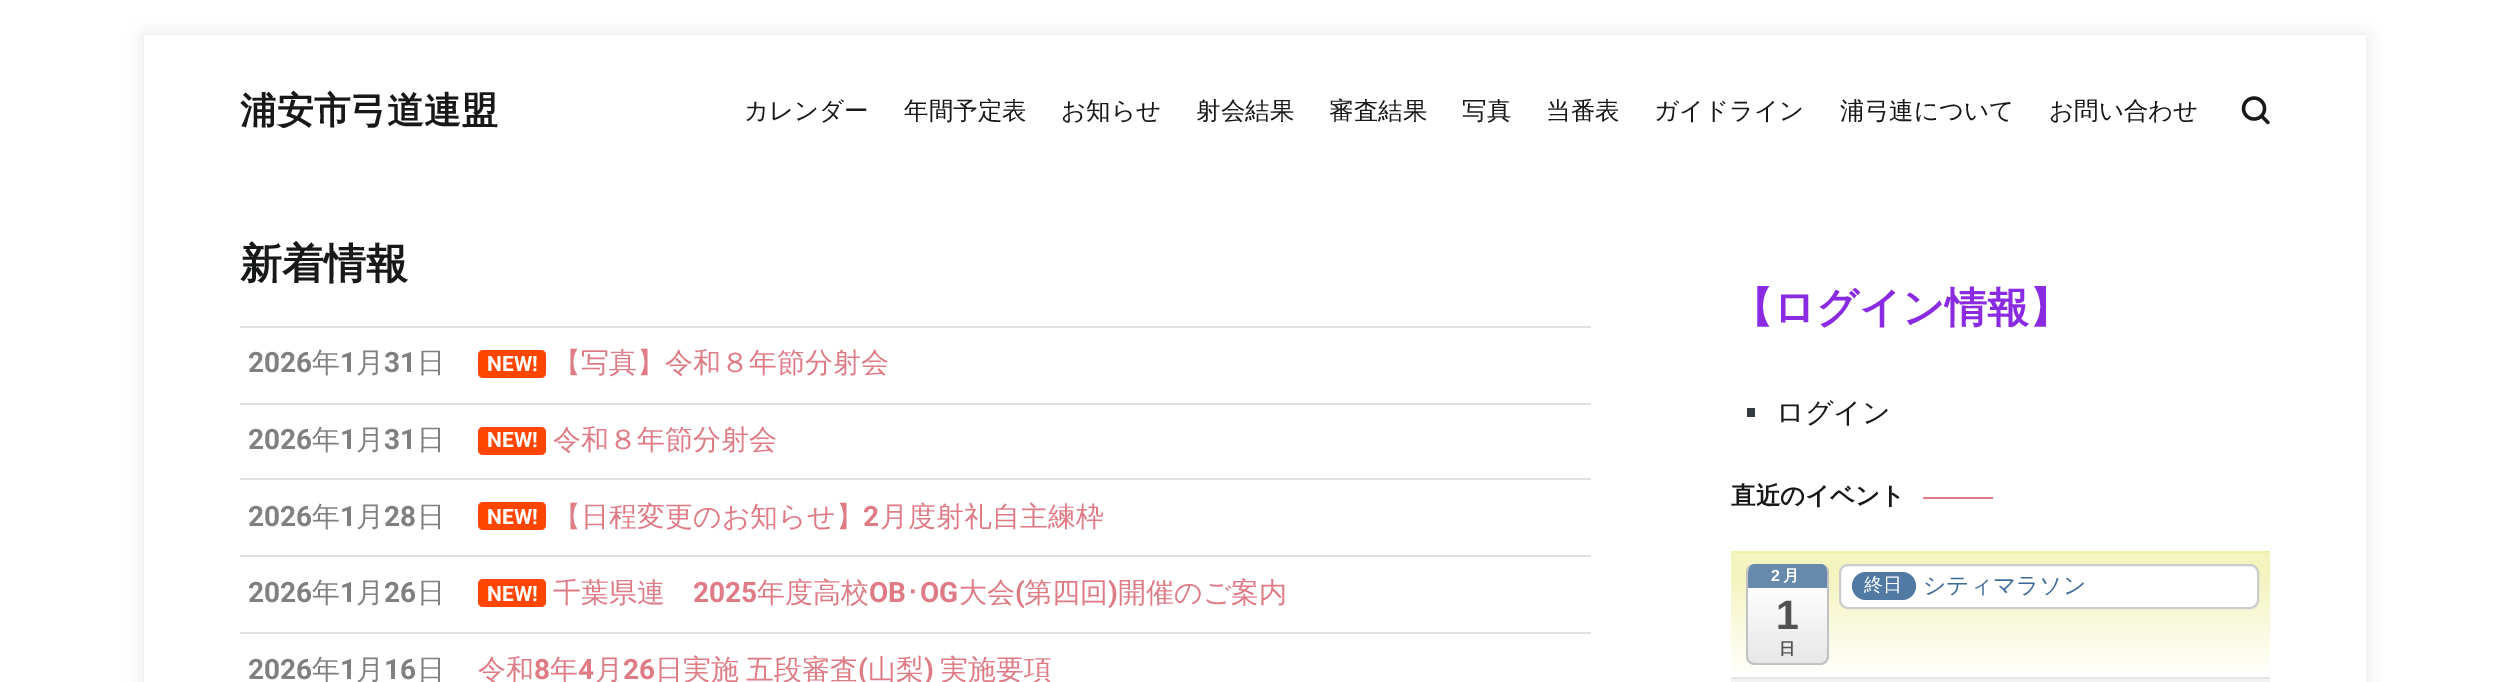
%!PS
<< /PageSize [2509 682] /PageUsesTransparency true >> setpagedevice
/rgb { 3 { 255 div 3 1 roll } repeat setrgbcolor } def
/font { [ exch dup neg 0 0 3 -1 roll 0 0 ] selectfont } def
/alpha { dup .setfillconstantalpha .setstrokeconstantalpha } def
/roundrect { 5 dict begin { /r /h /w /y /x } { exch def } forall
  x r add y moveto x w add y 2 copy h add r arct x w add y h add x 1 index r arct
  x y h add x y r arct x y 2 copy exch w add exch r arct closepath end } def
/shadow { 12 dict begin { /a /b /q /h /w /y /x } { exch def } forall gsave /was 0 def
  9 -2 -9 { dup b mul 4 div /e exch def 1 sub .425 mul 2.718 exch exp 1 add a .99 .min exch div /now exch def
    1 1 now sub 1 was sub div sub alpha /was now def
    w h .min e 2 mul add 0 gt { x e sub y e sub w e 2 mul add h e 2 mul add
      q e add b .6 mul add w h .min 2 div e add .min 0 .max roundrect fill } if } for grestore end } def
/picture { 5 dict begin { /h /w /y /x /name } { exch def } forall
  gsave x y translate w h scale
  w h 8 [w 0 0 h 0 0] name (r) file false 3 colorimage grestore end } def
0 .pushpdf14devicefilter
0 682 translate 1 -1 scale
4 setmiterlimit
255 255 255 rgb
0 0 2509 682 rectfill
gsave
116 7 moveto 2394 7 lineto 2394 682 lineto 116 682 lineto closepath 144 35 moveto 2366 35 lineto 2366 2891 lineto 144 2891 lineto closepath eoclip newpath
0 0 0 rgb
144 35 2222 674 0 9 0.1 shadow
grestore
(img/1.rgb) 2241 96 29 29 picture
224 224 224 rgb
240 326 1351 2 rectfill
255 69 0 rgb
478 350 68 28 5 roundrect fill
224 224 224 rgb
240 403 1351 2 rectfill
255 69 0 rgb
478 427 68 28 5 roundrect fill
224 224 224 rgb
240 478 1351 2 rectfill
255 69 0 rgb
478 502 68 28 5 roundrect fill
224 224 224 rgb
240 555 1351 2 rectfill
255 69 0 rgb
478 579 68 28 5 roundrect fill
[
  [240 632 1351 2 224 224 224]
  [1747 408 8 9 54 59 64]
  [1923 497 70 2 222 123 133]
] { aload pop rgb rectfill } forall
gsave 1731 553 moveto 2270 553 lineto 2270 673 lineto 1731 673 lineto closepath clip newpath
<< /ShadingType 2 /ColorSpace /DeviceRGB /Coords [2000 553 2000 677] /Extend [true true] /Function << /FunctionType 3 /Domain [0 1] /Functions [<< /FunctionType 2 /Domain [0 1] /C0 [0.957 0.957 0.749] /C1 [0.957 0.957 0.749] /N 1 >> << /FunctionType 2 /Domain [0 1] /C0 [0.957 0.957 0.749] /C1 [1 1 1] /N 1 >>] /Bounds [0.18] /Encode [0 1 0 1] >> >> shfill grestore
240 240 169 rgb
1731 551 539 2 rectfill
gsave
1747 564 82 101 9 roundrect clip newpath
gsave 1748 564 moveto 1827 564 lineto 1827 663 lineto 1748 663 lineto closepath clip newpath
<< /ShadingType 2 /ColorSpace /DeviceRGB /Coords [1788 564 1788 663] /Extend [true true] /Function << /FunctionType 3 /Domain [0 1] /Functions [<< /FunctionType 2 /Domain [0 1] /C0 [1 1 1] /C1 [1 1 1] /N 1 >> << /FunctionType 2 /Domain [0 1] /C0 [1 1 1] /C1 [0.906 0.906 0.906] /N 1 >>] /Bounds [0.21] /Encode [0 1 0 1] >> >> shfill grestore
grestore
194 194 194 rgb
1755 564 moveto 1820 564 lineto 1825 564 1829 567 1829 572 curveto 1829 656 lineto 1829 661 1825 665 1820 665 curveto 1755 665 lineto 1750 665 1746 661 1746 656 curveto 1746 572 lineto 1746 567 1750 564 1755 564 curveto closepath 1755 564 moveto 1820 564 lineto 1824 564 1827 567 1827 572 curveto 1827 656 lineto 1827 660 1824 663 1820 663 curveto 1755 663 lineto 1751 663 1748 660 1748 656 curveto 1748 572 lineto 1748 567 1751 564 1755 564 curveto closepath eofill
102 137 172 rgb
1755 564 moveto 1821 564 lineto 1828 565 1827 573 1827 578 curveto 1827 588 lineto 1748 588 lineto 1748 578 lineto 1748 572 1748 564 1755 564 curveto closepath fill
255 255 255 rgb
1840 565 418 43 8 roundrect gsave fill grestore
204 204 204 rgb
2 setlinewidth
stroke
80 122 163 rgb
1852 572 64 28 14 roundrect fill
gsave 1731 679 moveto 2270 679 lineto 2270 682 lineto 1731 682 lineto closepath clip newpath
<< /ShadingType 2 /ColorSpace /DeviceRGB /Coords [2000 679 2000 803] /Extend [true true] /Function << /FunctionType 3 /Domain [0 1] /Functions [<< /FunctionType 2 /Domain [0 1] /C0 [0.949 0.949 0.949] /C1 [0.949 0.949 0.949] /N 1 >> << /FunctionType 2 /Domain [0 1] /C0 [0.949 0.949 0.949] /C1 [1 1 1] /N 1 >>] /Bounds [0.18] /Encode [0 1 0 1] >> >> shfill grestore
229 229 229 rgb
1731 677 539 2 rectfill
/WenQuanYiZenHei-Bold 36.75 font
22 24 26 rgb
240 123 moveto (浦安市弓道連盟) show
/WenQuanYiZenHei-Medium 24.5 font
[
  [(カレンダー) 744 119]
  [(年間予定表) 904 119]
  [(お知らせ) 1061 119]
  [(射会結果) 1196 119]
  [(審査結果) 1329 119]
  [(写真) 1462 119]
  [(当番表) 1546 119]
  [(ガイドライン) 1654 119]
  [(浦弓連について) 1840 119]
  [(お問い合わせ) 2049 119]
] { aload pop moveto show } forall
/WenQuanYiZenHei-Bold 42 font
240 278 moveto (新着情報) show
/Roboto-Bold 28 font
128 128 128 rgb
248 372 moveto (2026) show
/WenQuanYiZenHei-Medium 28 font
312 372 moveto (年) show
/Roboto-Bold 28 font
340 372 moveto (1) show
/WenQuanYiZenHei-Medium 28 font
356 372 moveto (月) show
/Roboto-Bold 28 font
384 372 moveto (31) show
/WenQuanYiZenHei-Medium 28 font
417 372 moveto (日) show
/Roboto-Bold 21 font
255 255 255 rgb
487 371 moveto (NEW!) show
/WenQuanYiZenHei-Medium 28 font
222 123 133 rgb
553 372 moveto (【写真】令和８年節分射会) show
/Roboto-Bold 28 font
128 128 128 rgb
248 449 moveto (2026) show
/WenQuanYiZenHei-Medium 28 font
312 449 moveto (年) show
/Roboto-Bold 28 font
340 449 moveto (1) show
/WenQuanYiZenHei-Medium 28 font
356 449 moveto (月) show
/Roboto-Bold 28 font
384 449 moveto (31) show
/WenQuanYiZenHei-Medium 28 font
417 449 moveto (日) show
/Roboto-Bold 21 font
255 255 255 rgb
487 447 moveto (NEW!) show
/WenQuanYiZenHei-Medium 28 font
222 123 133 rgb
553 449 moveto (令和８年節分射会) show
/Roboto-Bold 28 font
128 128 128 rgb
248 526 moveto (2026) show
/WenQuanYiZenHei-Medium 28 font
312 526 moveto (年) show
/Roboto-Bold 28 font
340 526 moveto (1) show
/WenQuanYiZenHei-Medium 28 font
356 526 moveto (月) show
/Roboto-Bold 28 font
384 526 moveto (28) show
/WenQuanYiZenHei-Medium 28 font
417 526 moveto (日) show
/Roboto-Bold 21 font
255 255 255 rgb
487 524 moveto (NEW!) show
/WenQuanYiZenHei-Medium 28 font
222 123 133 rgb
553 526 moveto (【日程変更のお知らせ】) show
/Roboto-Bold 28 font
863 526 moveto (2) show
/WenQuanYiZenHei-Medium 28 font
880 526 moveto (月度射礼自主練枠) show
/Roboto-Bold 28 font
128 128 128 rgb
248 602 moveto (2026) show
/WenQuanYiZenHei-Medium 28 font
312 602 moveto (年) show
/Roboto-Bold 28 font
340 602 moveto (1) show
/WenQuanYiZenHei-Medium 28 font
356 602 moveto (月) show
/Roboto-Bold 28 font
384 602 moveto (26) show
/WenQuanYiZenHei-Medium 28 font
417 602 moveto (日) show
/Roboto-Bold 21 font
255 255 255 rgb
487 601 moveto (NEW!) show
/WenQuanYiZenHei-Medium 28 font
222 123 133 rgb
553 602 moveto (千葉県連) show
/Roboto-Bold 28 font
693 602 moveto (2025) show
/WenQuanYiZenHei-Medium 28 font
757 602 moveto (年度高校) show
/Roboto-Bold 28 font
869 602 moveto (OB) show
/IPAPGothic-Regular 28 font
906 602 moveto (･) show
/Roboto-Bold 28 font
920 602 moveto (OG) show
/WenQuanYiZenHei-Medium 28 font
959 602 moveto (大会) show
/Roboto-Bold 28 font
1015 602 moveto (\() show
/WenQuanYiZenHei-Medium 28 font
1024 602 moveto (第四回) show
/Roboto-Bold 28 font
1108 602 moveto (\)) show
/WenQuanYiZenHei-Medium 28 font
1118 602 moveto (開催のご案内) show
/Roboto-Bold 28 font
128 128 128 rgb
248 679 moveto (2026) show
/WenQuanYiZenHei-Medium 28 font
312 679 moveto (年) show
/Roboto-Bold 28 font
340 679 moveto (1) show
/WenQuanYiZenHei-Medium 28 font
356 679 moveto (月) show
/Roboto-Bold 28 font
384 679 moveto (16) show
/WenQuanYiZenHei-Medium 28 font
417 679 moveto (日) show
222 123 133 rgb
478 679 moveto (令和) show
/Roboto-Bold 28 font
534 679 moveto (8) show
/WenQuanYiZenHei-Medium 28 font
550 679 moveto (年) show
/Roboto-Bold 28 font
578 679 moveto (4) show
/WenQuanYiZenHei-Medium 28 font
595 679 moveto (月) show
/Roboto-Bold 28 font
623 679 moveto (26) show
/WenQuanYiZenHei-Medium 28 font
655 679 moveto -1 0 32 (日実施 五段審査) widthshow
/Roboto-Bold 28 font
858 679 moveto (\() show
/WenQuanYiZenHei-Medium 28 font
868 679 moveto (山梨) show
/Roboto-Bold 28 font
924 679 moveto (\)) show
/WenQuanYiZenHei-Medium 28 font
940 679 moveto (実施要項) show
/WenQuanYiZenHei-Bold 42 font
138 43 226 rgb
1731 322 moveto (【ログイン情報】) show
/WenQuanYiZenHei-Medium 28 font
22 24 26 rgb
1776 422 moveto (ログイン) show
/WenQuanYiZenHei-Bold 24.5 font
1731 504 moveto (直近のイベント) show
/LiberationSans-Bold 16 font
255 255 255 rgb
1771 581 moveto 3 0 (2) ashow
/WenQuanYiZenHei-Bold 16 font
1783 581 moveto 3 0 (月) ashow
/LiberationSans-Bold 41 font
82 82 82 rgb
1776 629 moveto (1) show
/WenQuanYiZenHei-Bold 16 font
1779 654 moveto (日) show
/WenQuanYiZenHei-Medium 19 font
255 255 255 rgb
1864 591 moveto (終日) show
/WenQuanYiZenHei-Medium 22.75 font
61 107 153 rgb
1923 593 moveto (シティマラソン) show
.poppdf14devicefilter showpage
